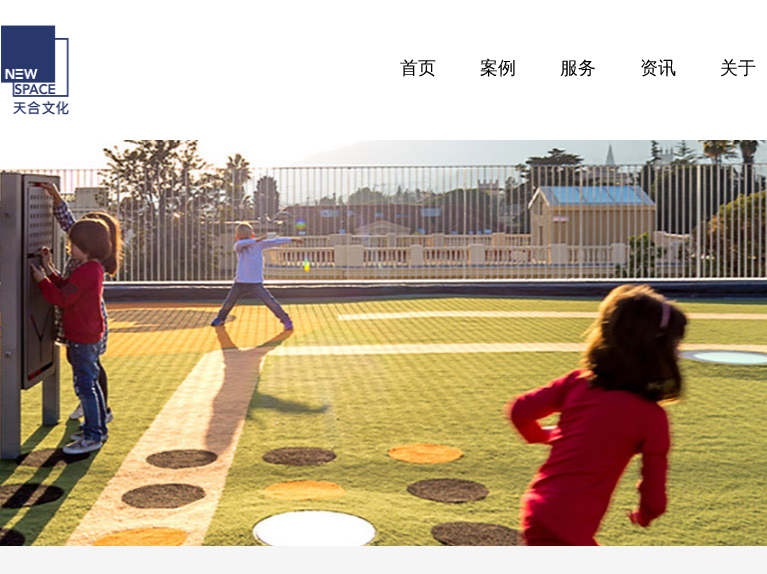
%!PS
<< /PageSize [767 574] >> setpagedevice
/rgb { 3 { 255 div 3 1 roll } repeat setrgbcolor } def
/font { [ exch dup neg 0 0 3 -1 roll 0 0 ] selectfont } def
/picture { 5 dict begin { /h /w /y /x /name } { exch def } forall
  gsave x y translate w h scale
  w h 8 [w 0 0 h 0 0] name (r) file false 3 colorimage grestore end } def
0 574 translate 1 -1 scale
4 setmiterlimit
245 245 245 rgb
0 0 767 574 rectfill
(img/1.rgb) 0 140 767 406 picture
255 255 255 rgb
0 0 767 140 rectfill
(img/2.rgb) 1 25 69 90 picture
/WenQuanYiZenHei-Medium 18 font
0 0 0 rgb
[
  [(首页) 400 74]
  [(案例) 480 74]
  [(服务) 560 74]
  [(资讯) 640 74]
  [(关于) 720 74]
] { aload pop moveto show } forall
showpage
